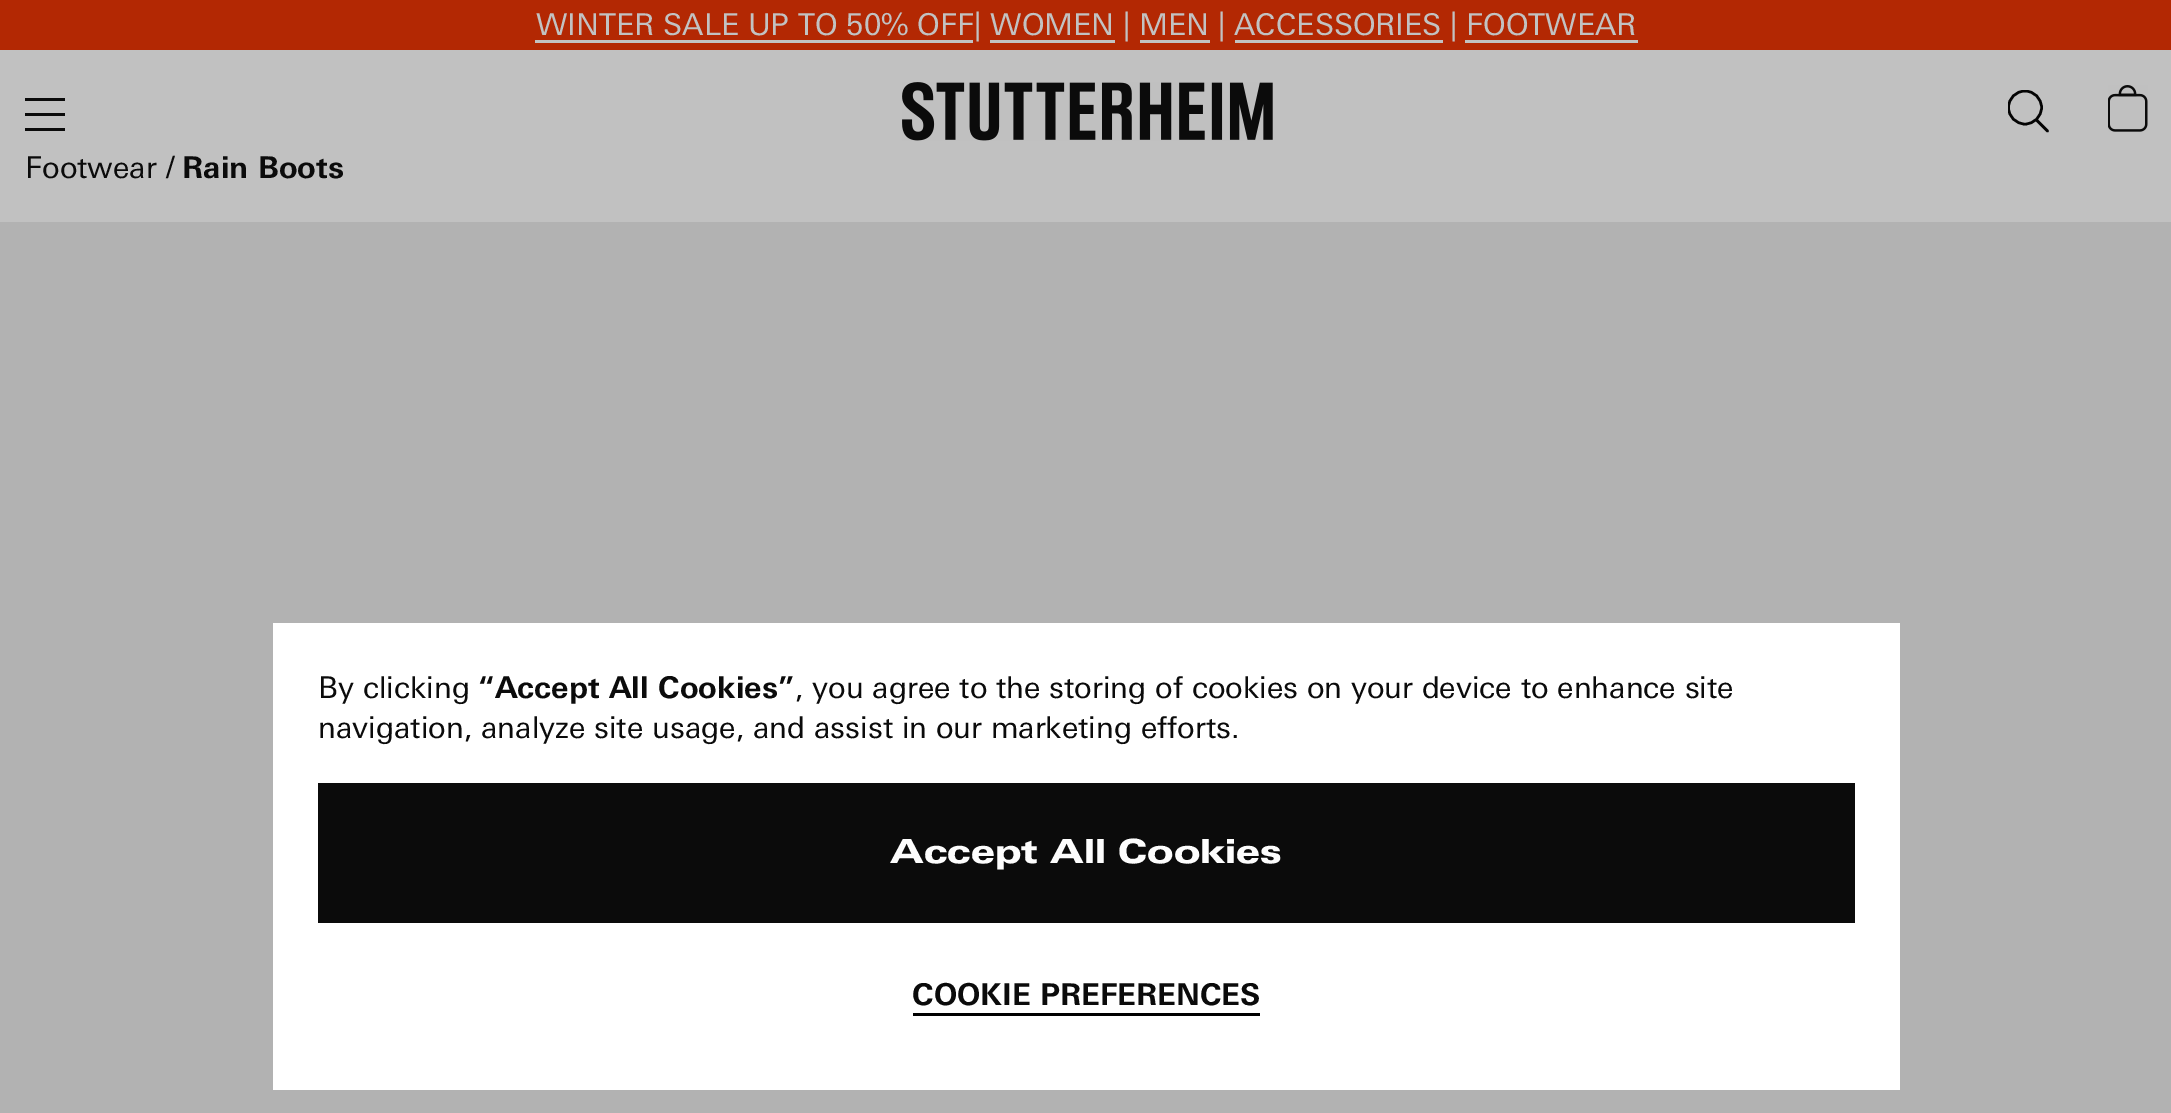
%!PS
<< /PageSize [2171 1113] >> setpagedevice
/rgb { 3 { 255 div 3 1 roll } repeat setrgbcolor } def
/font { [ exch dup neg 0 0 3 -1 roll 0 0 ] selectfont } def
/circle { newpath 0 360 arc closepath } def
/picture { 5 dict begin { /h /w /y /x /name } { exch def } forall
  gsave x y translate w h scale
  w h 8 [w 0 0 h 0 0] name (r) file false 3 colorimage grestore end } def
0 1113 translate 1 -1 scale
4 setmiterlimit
193 193 193 rgb
0 0 2171 1113 rectfill
[
  [0 0 2171 50 179 40 3]
  [535 40 438 3 194 194 194]
  [990 40 125 3 194 194 194]
  [1140 40 70 3 194 194 194]
  [1235 40 208 3 194 194 194]
  [1465 40 173 3 194 194 194]
  [25 98 40 3 11 11 11]
  [25 113 40 3 11 11 11]
  [25 128 40 3 11 11 11]
] { aload pop rgb rectfill } forall
(img/1.rgb) 902 82 371 59 picture
gsave
2008 90 42 43 rectclip
3 3 3 rgb
2.5 setlinewidth
2025 107.5 16.5 circle stroke
grestore
3 3 3 rgb
2.5 setlinewidth
1 setlinecap
2037 120.5 moveto 2047.5 131 lineto stroke
(img/2.rgb) 2108 85 40 47 picture
[
  [0 222 2171 891 178 178 178]
  [273 623 1627 467 255 255 255]
  [318 783 1537 140 11 11 11]
  [913 1013 347 3 0 0 0]
] { aload pop rgb rectfill } forall
/Univers-Black 30 font
194 194 194 rgb
[
  [(WINTER SALE UP TO 50% OFF) 536 35]
  [(| WOMEN) 974 35]
  [(| MEN) 1123 35]
  [(| ACCESSORIES) 1218 35]
  [(| FOOTWEAR) 1450 35]
] { aload pop moveto show } forall
11 11 11 rgb
25 178 moveto (Footwear) show
166 178 moveto (/) show
/Univers-Bold 30 font
182 178 moveto (Rain Boots) show
/Univers-Black 30 font
318 698 moveto (By clicking) show
/Univers-Bold 30 font
478 698 moveto (“Accept All Cookies”) show
/Univers-Black 30 font
795 698 moveto (, you agree to the storing of cookies on your device to enhance site) show
318 738 moveto (navigation, analyze site usage, and assist in our marketing efforts.) show
/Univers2-Black 33.25 font
253 253 253 rgb
890 863 moveto (Accept All Cookies) show
/Univers-Bold 30 font
11 11 11 rgb
912 1005 moveto (COOKIE PREFERENCES) show
showpage
